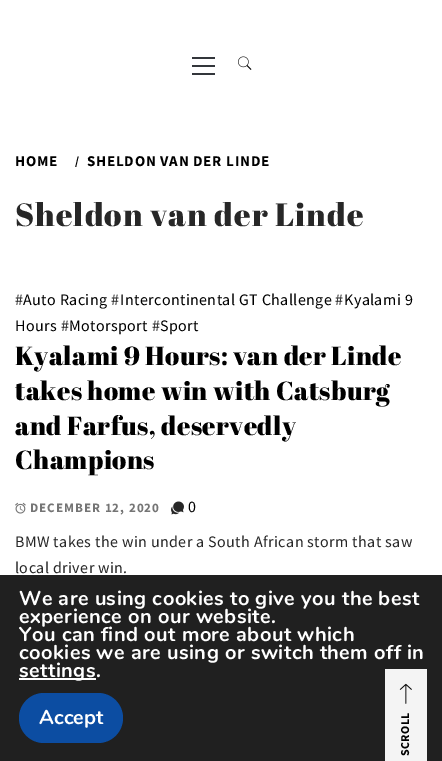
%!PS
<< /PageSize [442 761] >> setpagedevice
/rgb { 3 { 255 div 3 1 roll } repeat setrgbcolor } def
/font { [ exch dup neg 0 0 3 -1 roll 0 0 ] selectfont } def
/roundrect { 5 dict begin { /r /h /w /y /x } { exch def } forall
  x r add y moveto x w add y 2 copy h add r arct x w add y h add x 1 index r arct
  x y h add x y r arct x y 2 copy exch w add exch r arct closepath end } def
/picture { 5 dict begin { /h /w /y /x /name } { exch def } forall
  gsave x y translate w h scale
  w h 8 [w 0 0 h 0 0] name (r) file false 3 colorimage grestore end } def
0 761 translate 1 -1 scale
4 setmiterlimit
255 255 255 rgb
0 0 442 761 rectfill
[
  [192 65 23 2 51 54 59]
  [192 57 23 2 51 54 59]
  [192 73 23 2 51 54 59]
] { aload pop rgb rectfill } forall
(img/1.rgb) 238 56 14 14 picture
(img/2.rgb) 15 502 11 12 picture
(img/3.rgb) 171 501 13 14 picture
32 32 32 rgb
0 575 442 186 rectfill
244 244 244 rgb
385 669 42 92 rectfill
(img/4.rgb) 399 683 13 21 picture
255 255 255 rgb
19 678 77 2 rectfill
12 77 162 rgb
19 693 104 50 25 roundrect fill
/SourceSansPro-Bold 15 font
0 0 0 rgb
15 166 moveto 0.75 0 (HOME) ashow
/SourceSansPro-Bold 12 font
75 165 moveto 0.75 0 (/) ashow
/SourceSansPro-Bold 15 font
87 166 moveto 0.75 0 (SHELDON VAN DER LINDE) ashow
/AbrilFatface-Regular 32 font
39 39 39 rgb
15 226 moveto 1 0 (Sheldon van der Linde) ashow
/SourceSansPro-Regular 16 font
15 305 moveto 0.4 0 (#) ashow
0 0 0 rgb
23 305 moveto 0.4 0 (Auto Racing) ashow
39 39 39 rgb
111 305 moveto 0.4 0 (#) ashow
0 0 0 rgb
120 305 moveto 0.4 0 (Intercontinental GT Challenge) ashow
39 39 39 rgb
335 305 moveto 0.4 0 (#) ashow
0 0 0 rgb
344 305 moveto 0.4 0 (Kyalami 9) ashow
15 331 moveto 0.4 0 (Hours) ashow
39 39 39 rgb
61 331 moveto 0.4 0 (#) ashow
0 0 0 rgb
69 331 moveto 0.4 0 (Motorsport) ashow
39 39 39 rgb
152 331 moveto 0.4 0 (#) ashow
0 0 0 rgb
160 331 moveto 0.4 0 (Sport) ashow
/AbrilFatface-Regular 26 font
15 365 moveto 0.4 0 (Kyalami 9 Hours: van der Linde) ashow
15 400 moveto 0.4 0 (takes home win with Catsburg) ashow
15 435 moveto 0.4 0 (and Farfus, deservedly) ashow
15 469 moveto 0.4 0 (Champions) ashow
/SourceSansPro-Bold 13 font
117 117 117 rgb
30 512 moveto 1 0 (DECEMBER 12, 2020) ashow
/SourceSansPro-Regular 16 font
0 0 0 rgb
188 512 moveto 0.4 0 (0) ashow
39 39 39 rgb
15 547 moveto 0.4 0 (BMW takes the win under a South African storm that saw) ashow
15 573 moveto 0.4 0 (local driver win.) ashow
/SourceSansPro-Bold 12 font
0 0 0 rgb
gsave 409 756 translate -90 rotate 0 0 moveto 0.4 0 (SCROLL) ashow grestore
/Nunito-Bold 20 font
255 255 255 rgb
19 605 moveto 0.4 0 (We are using cookies to give you the best) ashow
19 623 moveto 0.4 0 (experience on our website.) ashow
19 641 moveto 0.4 0 (You can find out more about which) ashow
19 659 moveto 0.4 0 (cookies we are using or switch them off in) ashow
19 677 moveto 0.4 0 (settings.) ashow
39 724 moveto (Accept) show
showpage
